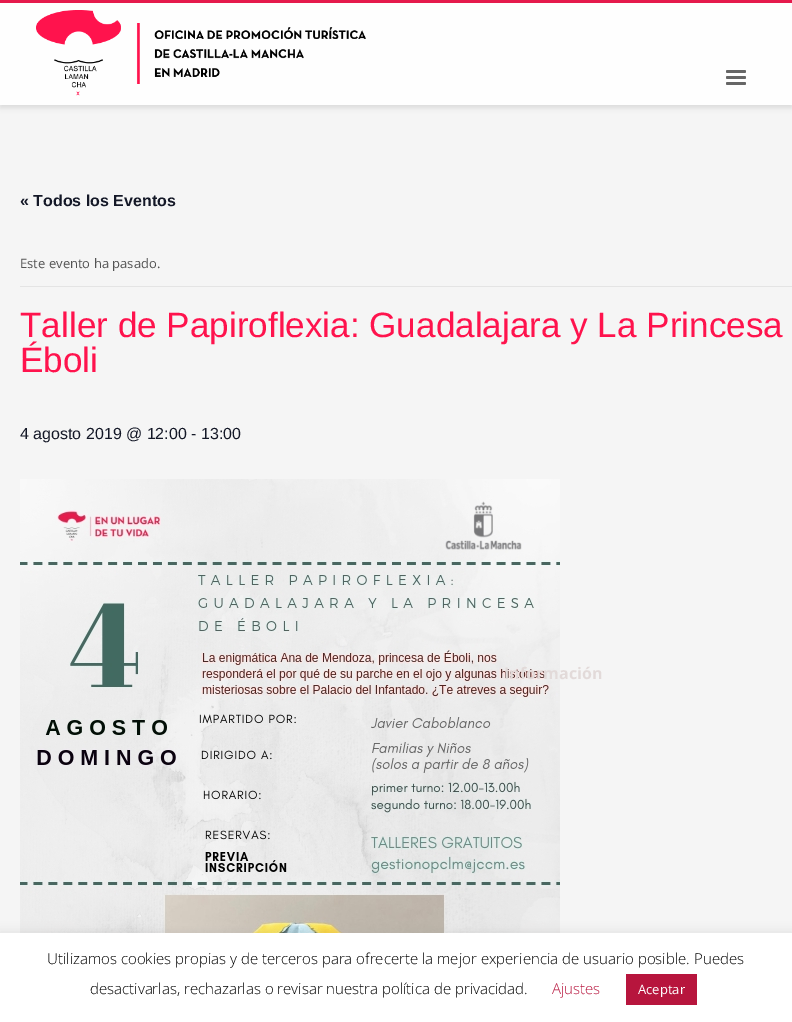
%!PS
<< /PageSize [792 1022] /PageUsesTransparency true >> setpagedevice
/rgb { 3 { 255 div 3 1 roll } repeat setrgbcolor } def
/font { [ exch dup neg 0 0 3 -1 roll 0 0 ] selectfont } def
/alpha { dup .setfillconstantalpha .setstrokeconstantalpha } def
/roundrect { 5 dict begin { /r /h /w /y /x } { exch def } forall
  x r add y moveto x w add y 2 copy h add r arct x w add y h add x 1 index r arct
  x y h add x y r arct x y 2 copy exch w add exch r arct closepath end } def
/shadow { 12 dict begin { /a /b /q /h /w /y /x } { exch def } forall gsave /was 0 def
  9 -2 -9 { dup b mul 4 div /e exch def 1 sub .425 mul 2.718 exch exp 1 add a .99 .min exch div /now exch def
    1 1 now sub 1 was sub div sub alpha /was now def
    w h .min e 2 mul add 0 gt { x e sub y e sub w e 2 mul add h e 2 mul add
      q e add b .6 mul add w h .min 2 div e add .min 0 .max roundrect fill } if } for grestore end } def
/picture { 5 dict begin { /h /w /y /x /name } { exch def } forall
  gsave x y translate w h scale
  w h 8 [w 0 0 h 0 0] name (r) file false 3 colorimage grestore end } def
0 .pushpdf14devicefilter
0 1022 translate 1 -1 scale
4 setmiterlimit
245 245 245 rgb
0 0 792 1022 rectfill
0 0 0 rgb
0 3 792 105 0 2.5 0.1 shadow
254 254 254 rgb
0 3 792 102 rectfill
229 26 76 rgb
0 0 792 3 rectfill
(img/1.rgb) 36 10 330 86 picture
102 102 102 rgb
726 70 20 3 1.5 roundrect fill
726 76 20 3 1.5 roundrect fill
726 82 20 3 1.5 roundrect fill
228 228 228 rgb
20 286 772 1 rectfill
(img/2.rgb) 20 479 540 454 picture
172 171 171 rgb
0 932 792 89 0 5 0.3 shadow
255 255 255 rgb
0 933 792 89 rectfill
183 21 61 rgb
626 974 71 31 rectfill
/LiberationSans-Bold 16 font
20 24 39 rgb
20 206 moveto (« Todos los Eventos) show
/OpenSans-Regular 13 font
83 83 83 rgb
20 268 moveto (Este evento ha pasado.) show
/LiberationSans-Regular 35.1 font
255 19 77 rgb
20 337 moveto (Taller de Papiroflexia: Guadalajara y La Princesa) show
20 372 moveto (Éboli) show
/LiberationSans-Regular 16 font
20 24 39 rgb
20 439 moveto (4 agosto 2019 @ 12:00 - 13:00) show
/OpenSans-Bold 16 font
226 218 217 rgb
504 679 moveto (Información) show
/OpenSans-Light 15 font
0 0 0 rgb
47 964 moveto (Utilizamos cookies propias y de terceros para ofrecerte la mejor experiencia de usuario posible. Puedes) show
90 994 moveto (desactivarlas, rechazarlas o revisar nuestra política de privacidad.) show
183 21 61 rgb
552 994 moveto (Ajustes) show
/OpenSans-Regular 13 font
255 255 255 rgb
638 994 moveto (Aceptar) show
.poppdf14devicefilter showpage
